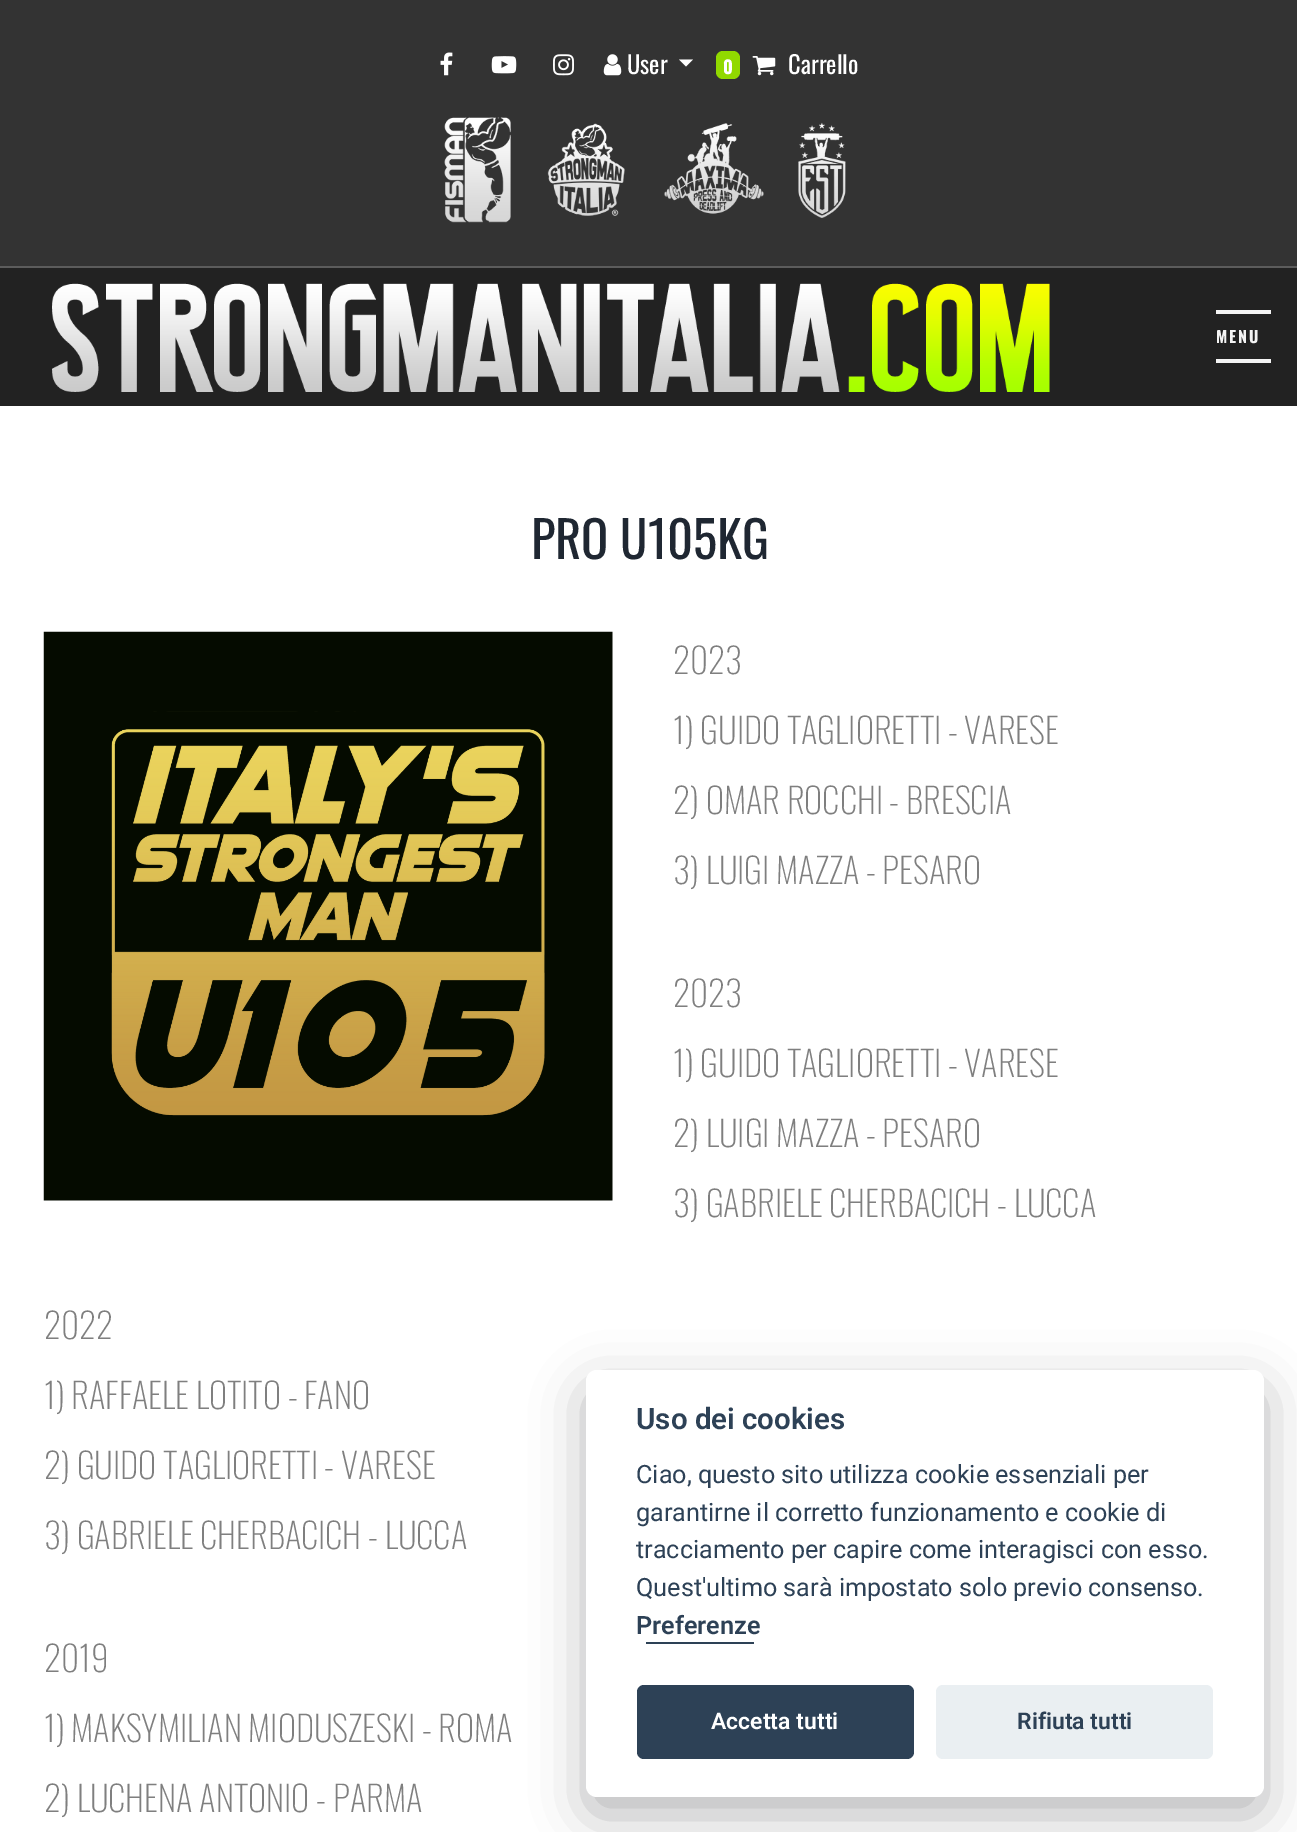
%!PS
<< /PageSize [1297 1832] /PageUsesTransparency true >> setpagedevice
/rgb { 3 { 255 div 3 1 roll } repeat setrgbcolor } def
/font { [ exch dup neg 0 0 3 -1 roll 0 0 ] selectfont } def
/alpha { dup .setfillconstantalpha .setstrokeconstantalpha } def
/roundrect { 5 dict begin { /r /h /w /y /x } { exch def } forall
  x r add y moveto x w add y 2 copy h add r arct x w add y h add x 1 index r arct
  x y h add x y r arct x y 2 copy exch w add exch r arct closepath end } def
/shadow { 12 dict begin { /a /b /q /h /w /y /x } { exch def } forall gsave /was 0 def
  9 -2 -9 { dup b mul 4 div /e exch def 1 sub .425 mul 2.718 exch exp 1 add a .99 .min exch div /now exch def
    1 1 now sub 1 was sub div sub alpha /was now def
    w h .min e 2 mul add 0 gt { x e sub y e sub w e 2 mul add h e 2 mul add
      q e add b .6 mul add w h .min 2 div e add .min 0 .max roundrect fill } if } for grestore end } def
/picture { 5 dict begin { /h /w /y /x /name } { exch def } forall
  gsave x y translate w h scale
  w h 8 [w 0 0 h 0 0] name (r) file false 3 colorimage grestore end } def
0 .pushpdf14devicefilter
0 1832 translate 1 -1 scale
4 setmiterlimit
255 255 255 rgb
0 0 1297 1832 rectfill
51 51 51 rgb
0 0 1297 266 rectfill
(img/1.rgb) 440 52 13 24 picture
(img/2.rgb) 491 56 26 18 picture
(img/3.rgb) 553 54 21 22 picture
(img/4.rgb) 603 54 19 22 picture
255 255 255 rgb
679 59.5 moveto 693 59.5 lineto 686 66.5 lineto closepath fill
145 217 0 rgb
716 51 24 28 7 roundrect fill
(img/5.rgb) 752 56 24 20 picture
(img/6.rgb) 444 117 67 106 picture
(img/7.rgb) 547 123 78 93 picture
(img/8.rgb) 664 123 100 91 picture
(img/9.rgb) 798 122 48 96 picture
34 34 34 rgb
0 268 1297 138 rectfill
92 92 92 rgb
0 266 1297 2 rectfill
(img/10.rgb) 52 283 998 109 picture
244 244 244 rgb
1216 310 55 4 rectfill
1216 359 55 4 rectfill
(img/11.rgb) 43 631 570 570 picture
2 2 3 rgb
586 1388 678 427 11 26 0.28 shadow
255 255 255 rgb
586 1370 678 427 11 roundrect fill
45 65 86 rgb
646 1642 108 2 rectfill
637 1685 277 74 7 roundrect fill
234 239 242 rgb
936 1685 277 74 7 roundrect fill
/Oswald-Regular 24.5 font
255 255 255 rgb
627 74 moveto (User) show
/Oswald-Bold 18 font
723 74 moveto (0) show
/Oswald-Regular 24.5 font
788 74 moveto (Carrello) show
/Oswald-Bold 16 font
244 244 244 rgb
1216 343 moveto 2 0 (MENU) ashow
/Oswald-Regular 50.5 font
31 39 50 rgb
531 559 moveto (PRO U105KG) show
/Oswald-ExtraLight 35 font
127 127 127 rgb
[
  [(2023) 673 674]
  [(1\) GUIDO TAGLIORETTI - VARESE) 673 744]
  [(2\) OMAR ROCCHI - BRESCIA) 673 814]
  [(3\) LUIGI MAZZA - PESARO) 673 884]
  [(2023) 673 1007]
  [(1\) GUIDO TAGLIORETTI - VARESE) 673 1077]
  [(2\) LUIGI MAZZA - PESARO) 673 1147]
  [(3\) GABRIELE CHERBACICH - LUCCA) 673 1217]
  [(2022) 44 1339]
  [(1\) RAFFAELE LOTITO - FANO) 44 1409]
  [(2\) GUIDO TAGLIORETTI - VARESE) 44 1479]
  [(3\) GABRIELE CHERBACICH - LUCCA) 44 1549]
  [(2019) 44 1672]
  [(1\) MAKSYMILIAN MIODUSZESKI - ROMA) 44 1742]
  [(2\) LUCHENA ANTONIO - PARMA) 44 1812]
] { aload pop moveto show } forall
/Roboto-SemiBold 29.5 font
45 65 86 rgb
636 1429 moveto (Uso dei cookies) show
/Roboto-Regular 25.2 font
[
  [(Ciao, questo sito utilizza cookie essenziali per) 636 1483]
  [(garantirne il corretto funzionamento e cookie di) 636 1521]
  [(tracciamento per capire come interagisci con esso.) 636 1558]
  [(Quest'ultimo sarà impostato solo previo consenso.) 636 1596]
] { aload pop moveto show } forall
/Roboto-SemiBold 25.2 font
636 1634 moveto (Preferenze) show
/Roboto-SemiBold 23 font
255 255 255 rgb
711 1729 moveto (Accetta tutti) show
45 65 86 rgb
1017 1729 moveto (Rifiuta tutti) show
.poppdf14devicefilter showpage
